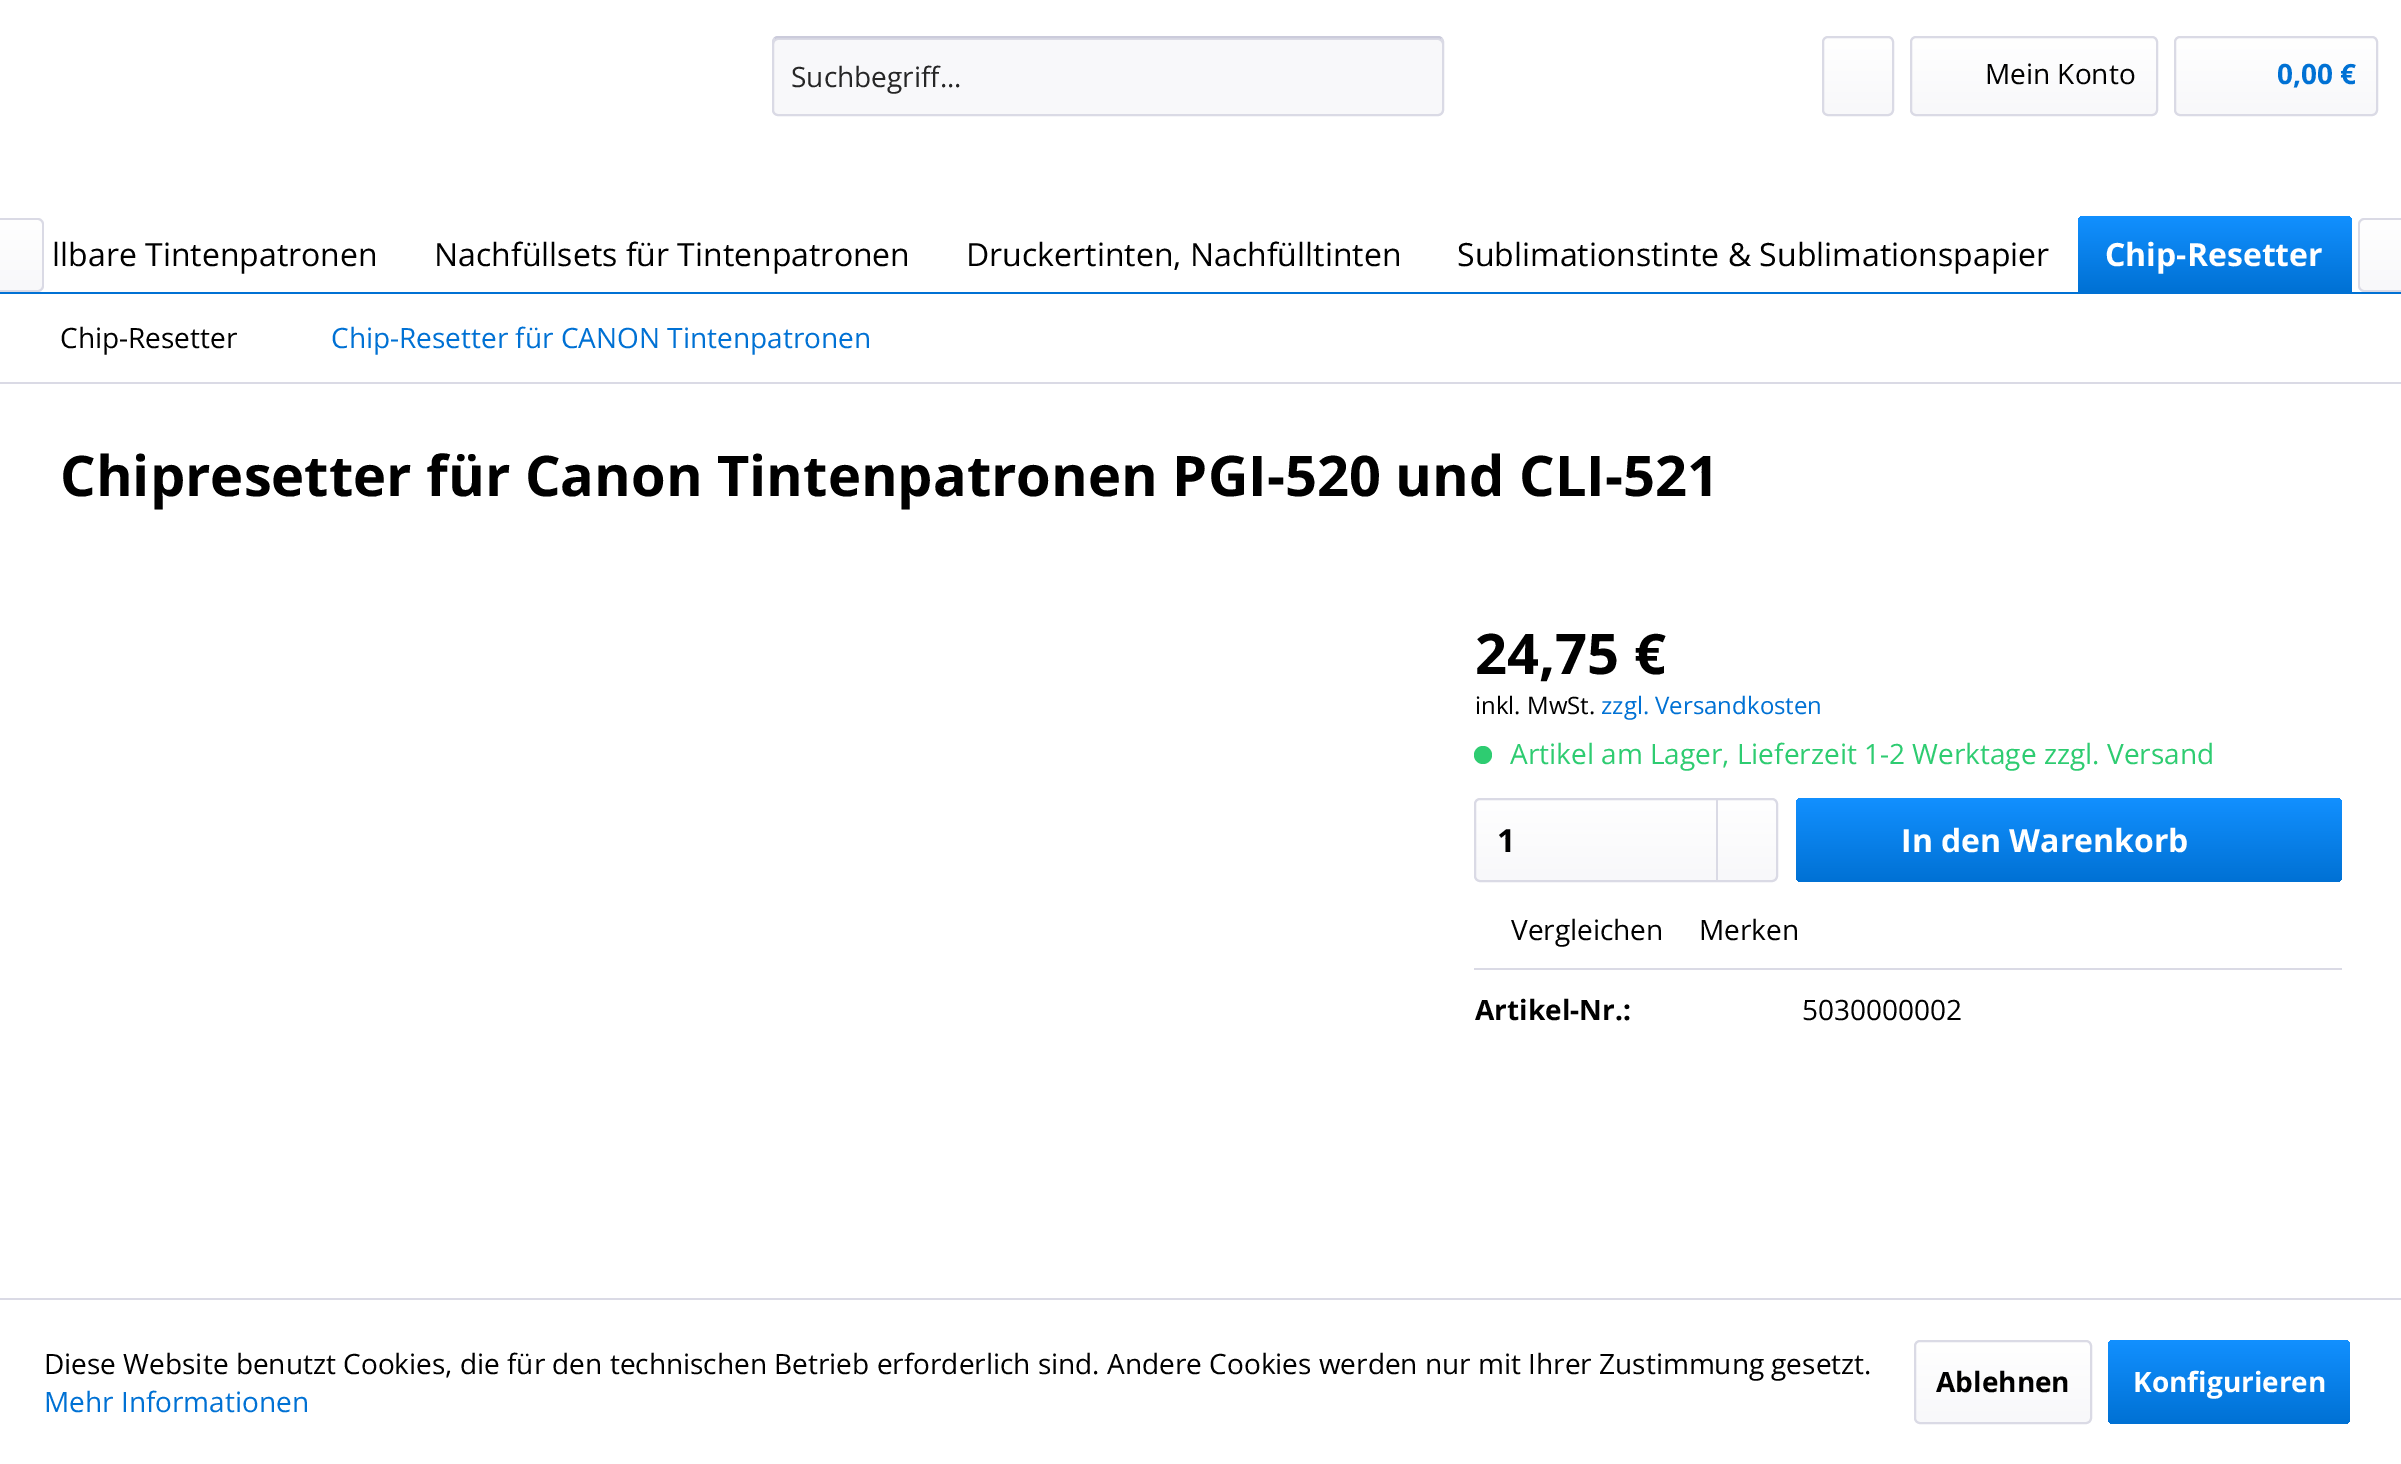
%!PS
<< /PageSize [2401 1464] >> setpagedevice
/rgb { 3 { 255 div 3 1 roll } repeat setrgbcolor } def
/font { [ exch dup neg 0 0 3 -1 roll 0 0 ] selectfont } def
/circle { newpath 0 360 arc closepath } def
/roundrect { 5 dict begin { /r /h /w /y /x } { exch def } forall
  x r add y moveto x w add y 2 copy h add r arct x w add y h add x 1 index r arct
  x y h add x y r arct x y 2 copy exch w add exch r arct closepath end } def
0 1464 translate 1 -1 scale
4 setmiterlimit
255 255 255 rgb
0 0 2401 1464 rectfill
248 248 250 rgb
772 36 672 80 6 roundrect fill
218 218 229 rgb
778 40 moveto 1438 40 lineto 1440 40 1442 42 1442 44 curveto 1442 42 lineto 1442 40 1440 38 1438 38 curveto 778 38 lineto 776 38 774 40 774 42 curveto 774 44 lineto 774 42 776 40 778 40 curveto closepath fill
203 203 219 rgb
2 setlinewidth
774.5 38.5 moveto 775.5 37.5 776.5 37 778 37 curveto 1438 37 lineto 1439.5 37 1440.5 37.5 1441.5 38.5 curveto stroke
218 218 229 rgb
1441.5 38.5 moveto 1442.5 39.5 1443 40.5 1443 42 curveto 1443 110 lineto 1443 111.5 1442.5 112.5 1441.5 113.5 curveto 1440.5 114.5 1439.5 115 1438 115 curveto 778 115 lineto 776.5 115 775.5 114.5 774.5 113.5 curveto 773.5 112.5 773 111.5 773 110 curveto 773 42 lineto 773 40.5 773.5 39.5 774.5 38.5 curveto stroke
gsave 1824 38 68 76 4 roundrect clip newpath
<< /ShadingType 2 /ColorSpace /DeviceRGB /Coords [1858 38 1858 114] /Extend [true true] /Function << /FunctionType 2 /Domain [0 1] /C0 [1 1 1] /C1 [0.973 0.973 0.98] /N 1 >> >> shfill grestore
1823 37 70 78 5 roundrect stroke
gsave 1912 38 244 76 4 roundrect clip newpath
<< /ShadingType 2 /ColorSpace /DeviceRGB /Coords [2034 38 2034 114] /Extend [true true] /Function << /FunctionType 2 /Domain [0 1] /C0 [1 1 1] /C1 [0.973 0.973 0.98] /N 1 >> >> shfill grestore
1911 37 246 78 5 roundrect stroke
gsave 2176 38 200 76 4 roundrect clip newpath
<< /ShadingType 2 /ColorSpace /DeviceRGB /Coords [2276 38 2276 114] /Extend [true true] /Function << /FunctionType 2 /Domain [0 1] /C0 [1 1 1] /C1 [0.973 0.973 0.98] /N 1 >> >> shfill grestore
2175 37 202 78 5 roundrect stroke
0 113 212 rgb
0 292 2401 2 rectfill
gsave 0 220 moveto 38 220 lineto 40 220 42 222 42 224 curveto 42 286 lineto 42 288 40 290 38 290 curveto 0 290 lineto closepath clip newpath
<< /ShadingType 2 /ColorSpace /DeviceRGB /Coords [21 220 21 290] /Extend [true true] /Function << /FunctionType 2 /Domain [0 1] /C0 [1 1 1] /C1 [0.973 0.973 0.98] /N 1 >> >> shfill grestore
218 218 229 rgb
0 218 moveto 38 218 lineto 41 218 44 221 44 224 curveto 44 286 lineto 44 289 41 292 38 292 curveto 0 292 lineto closepath 0 220 moveto 38 220 lineto 40 220 42 222 42 224 curveto 42 286 lineto 42 288 40 290 38 290 curveto 0 290 lineto closepath eofill
gsave 2084 216 moveto 2346 216 lineto 2349.5 216 2352 218.5 2352 222 curveto 2352 292 lineto 2078 292 lineto 2078 222 lineto 2078 218.5 2080.5 216 2084 216 curveto closepath clip newpath
<< /ShadingType 2 /ColorSpace /DeviceRGB /Coords [2215 216 2215 292] /Extend [true true] /Function << /FunctionType 2 /Domain [0 1] /C0 [0.071 0.565 1] /C1 [0 0.443 0.831] /N 1 >> >> shfill grestore
gsave 2364 220 moveto 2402 220 lineto 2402 290 lineto 2364 290 lineto 2362 290 2360 288 2360 286 curveto 2360 224 lineto 2360 222 2362 220 2364 220 curveto closepath clip newpath
<< /ShadingType 2 /ColorSpace /DeviceRGB /Coords [2381 220 2381 290] /Extend [true true] /Function << /FunctionType 2 /Domain [0 1] /C0 [1 1 1] /C1 [0.973 0.973 0.98] /N 1 >> >> shfill grestore
2364 218 moveto 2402 218 lineto 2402 292 lineto 2364 292 lineto 2361 292 2358 289 2358 286 curveto 2358 224 lineto 2358 221 2361 218 2364 218 curveto closepath 2364 220 moveto 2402 220 lineto 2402 290 lineto 2364 290 lineto 2362 290 2360 288 2360 286 curveto 2360 224 lineto 2360 222 2362 220 2364 220 curveto closepath eofill
0 382 2401 2 rectfill
46 204 113 rgb
1483 755 9 circle fill
gsave 1476 800 300 80 4 roundrect clip newpath
<< /ShadingType 2 /ColorSpace /DeviceRGB /Coords [1626 800 1626 880] /Extend [true true] /Function << /FunctionType 2 /Domain [0 1] /C0 [1 1 1] /C1 [0.973 0.973 0.98] /N 1 >> >> shfill grestore
218 218 229 rgb
1475 799 302 82 5 roundrect stroke
1716 800 2 80 rectfill
gsave 1796 798 546 84 6 roundrect clip newpath
<< /ShadingType 2 /ColorSpace /DeviceRGB /Coords [2069 798 2069 882] /Extend [true true] /Function << /FunctionType 2 /Domain [0 1] /C0 [0.071 0.565 1] /C1 [0 0.443 0.831] /N 1 >> >> shfill grestore
1474 968 868 2 rectfill
0 1298 2401 2 rectfill
gsave 1916 1342 174 80 4 roundrect clip newpath
<< /ShadingType 2 /ColorSpace /DeviceRGB /Coords [2003 1342 2003 1422] /Extend [true true] /Function << /FunctionType 2 /Domain [0 1] /C0 [1 1 1] /C1 [0.973 0.973 0.98] /N 1 >> >> shfill grestore
1915 1341 176 82 5 roundrect stroke
gsave 2108 1340 242 84 6 roundrect clip newpath
<< /ShadingType 2 /ColorSpace /DeviceRGB /Coords [2229 1340 2229 1424] /Extend [true true] /Function << /FunctionType 2 /Domain [0 1] /C0 [0.071 0.565 1] /C1 [0 0.443 0.831] /N 1 >> >> shfill grestore
/OpenSans-Regular 28 font
38 38 38 rgb
791 87 moveto (Suchbegriff...) show
0 0 0 rgb
1985 84 moveto (Mein Konto) show
/OpenSans-Bold 28 font
0 113 212 rgb
2277 84 moveto (0,00 €) show
/OpenSans-Regular 32 font
0 0 0 rgb
[
  [(llbare Tintenpatronen) 52 266]
  [(Nachfüllsets für Tintenpatronen) 434 266]
  [(Druckertinten, Nachfülltinten) 966 266]
  [(Sublimationstinte & Sublimationspapier) 1457 266]
] { aload pop moveto show } forall
/OpenSans-Bold 32 font
255 255 255 rgb
2105 266 moveto (Chip-Resetter) show
/OpenSans-Regular 28 font
0 0 0 rgb
60 348 moveto (Chip-Resetter) show
0 113 212 rgb
331 348 moveto (Chip-Resetter für CANON Tintenpatronen) show
/OpenSans-Bold 56 font
0 0 0 rgb
60 496 moveto (Chipresetter für Canon Tintenpatronen PGI-520 und CLI-521) show
1475 674 moveto (24,75 €) show
/OpenSans-Regular 24 font
1475 714 moveto (inkl. MwSt.) show
0 113 212 rgb
1601 714 moveto (zzgl. Versandkosten) show
/OpenSans-Regular 28 font
46 204 113 rgb
1510 764 moveto (Artikel am Lager, Lieferzeit 1-2 Werktage zzgl. Versand) show
/OpenSans-Bold 32 font
0 0 0 rgb
1497 852 moveto (1) show
255 255 255 rgb
1901 852 moveto (In den Warenkorb) show
/OpenSans-Regular 28 font
0 0 0 rgb
1511 940 moveto (Vergleichen) show
1699 940 moveto (Merken) show
/OpenSans-Bold 28 font
1475 1020 moveto (Artikel-Nr.:) show
/OpenSans-Regular 28 font
1802 1020 moveto (5030000002) show
44 1374 moveto (Diese Website benutzt Cookies, die für den technischen Betrieb erforderlich sind. Andere Cookies werden nur mit Ihrer Zustimmung gesetzt.) show
0 113 212 rgb
44 1412 moveto (Mehr Informationen) show
/OpenSans-Bold 28 font
0 0 0 rgb
1936 1392 moveto (Ablehnen) show
255 255 255 rgb
2133 1392 moveto (Konfigurieren) show
showpage
